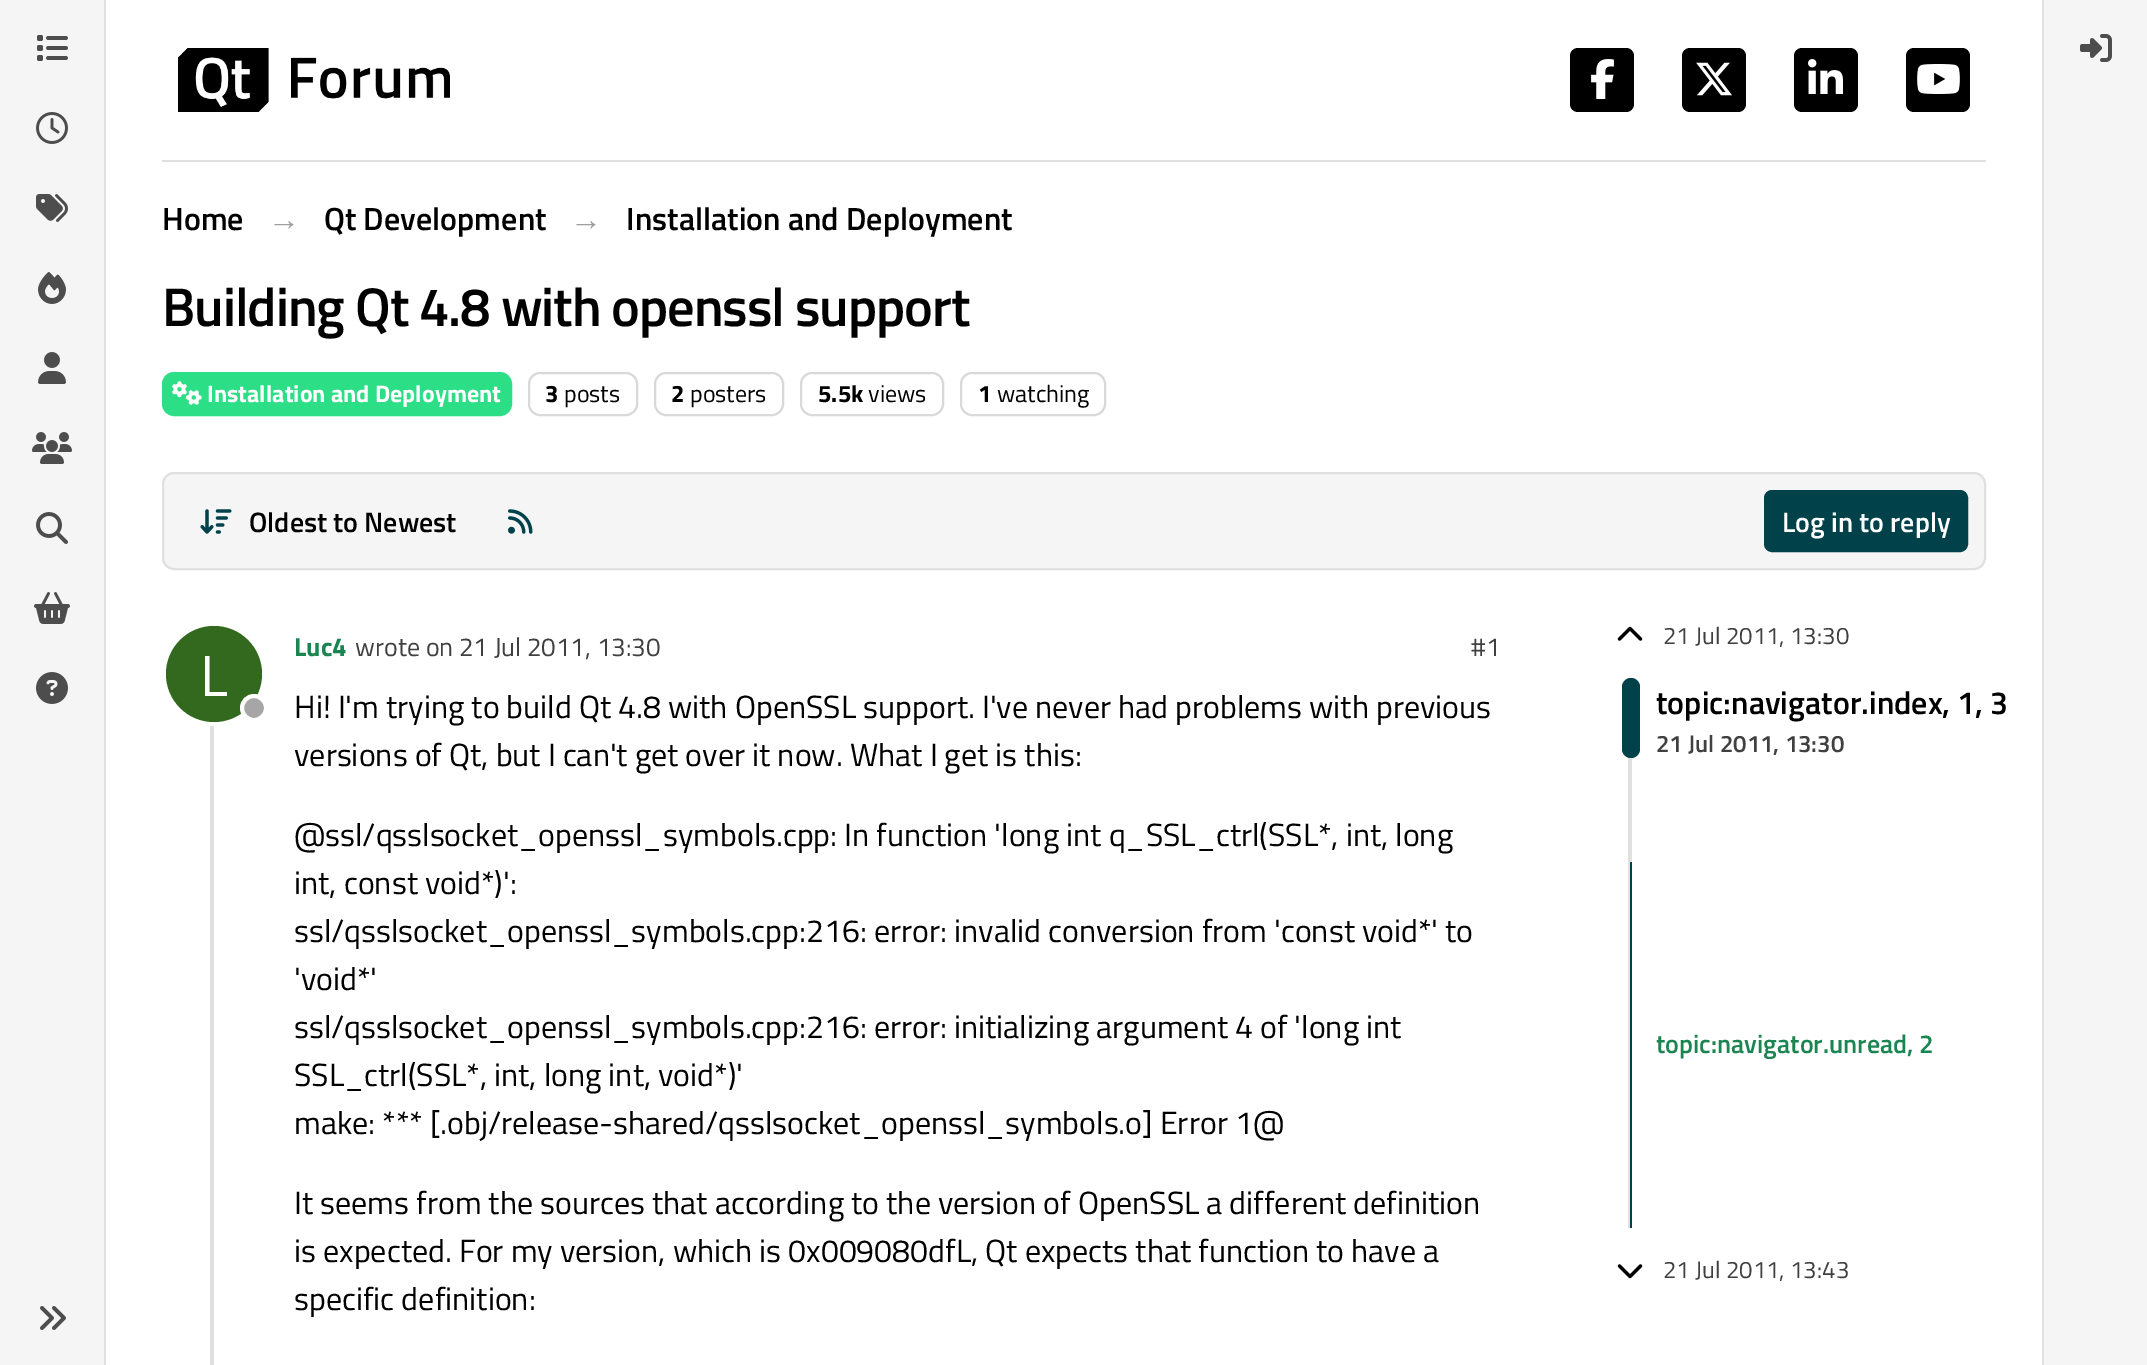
%!PS
<< /PageSize [2147 1365] >> setpagedevice
/rgb { 3 { 255 div 3 1 roll } repeat setrgbcolor } def
/font { [ exch dup neg 0 0 3 -1 roll 0 0 ] selectfont } def
/circle { newpath 0 360 arc closepath } def
/roundrect { 5 dict begin { /r /h /w /y /x } { exch def } forall
  x r add y moveto x w add y 2 copy h add r arct x w add y h add x 1 index r arct
  x y h add x y r arct x y 2 copy exch w add exch r arct closepath end } def
/picture { 5 dict begin { /h /w /y /x /name } { exch def } forall
  gsave x y translate w h scale
  w h 8 [w 0 0 h 0 0] name (r) file false 3 colorimage grestore end } def
0 1365 translate 1 -1 scale
4 setmiterlimit
255 255 255 rgb
0 0 2147 1365 rectfill
245 245 245 rgb
0 0 104 1365 rectfill
224 224 224 rgb
104 0 2 1365 rectfill
(img/1.rgb) 37 35 31 26 picture
(img/2.rgb) 36 112 32 32 picture
(img/3.rgb) 36 194 32 28 picture
(img/4.rgb) 38 272 28 32 picture
(img/5.rgb) 38 352 28 32 picture
(img/6.rgb) 32 432 40 32 picture
(img/7.rgb) 36 512 32 32 picture
(img/8.rgb) 34 592 36 32 picture
(img/9.rgb) 36 672 32 32 picture
(img/10.rgb) 40 1306 26 24 picture
162 160 1824 2 rectfill
(img/11.rgb) 178 48 272 64 picture
0 0 0 rgb
1570 48 64 64 8 roundrect fill
(img/12.rgb) 1591 59 23 40 picture
1682 48 64 64 8 roundrect fill
(img/13.rgb) 1696 62 36 34 picture
1794 48 64 64 8 roundrect fill
(img/14.rgb) 1808 59 35 35 picture
1906 48 64 64 8 roundrect fill
(img/15.rgb) 1917 64 43 30 picture
44 222 133 rgb
163 373 348 42 11 roundrect gsave fill grestore
2 setlinewidth
stroke
(img/16.rgb) 172 381 30 24 picture
217 217 217 rgb
529 373 108 42 11 roundrect stroke
655 373 128 42 11 roundrect stroke
801 373 142 42 11 roundrect stroke
961 373 144 42 11 roundrect stroke
245 245 245 rgb
163 473 1822 96 11 roundrect gsave fill grestore
224 224 224 rgb
stroke
(img/17.rgb) 200 509 32 25 picture
(img/18.rgb) 508 509 25 25 picture
0 65 74 rgb
1765 491 202 60 7 roundrect gsave fill grestore
stroke
224 224 224 rgb
210 626 4 739 rectfill
255 255 255 rgb
4 setlinewidth
214 674 50 circle stroke
51 105 30 rgb
214 674 48 circle fill
166 166 166 rgb
254 708 12 circle gsave fill grestore
255 255 255 rgb
stroke
(img/19.rgb) 1617 626 26 15 picture
224 224 224 rgb
1628 678 4 550 rectfill
0 65 74 rgb
1622 678 18 80 9 roundrect fill
1630 862 2 366 rectfill
(img/20.rgb) 1617 1264 26 15 picture
245 245 245 rgb
2044 0 103 1365 rectfill
224 224 224 rgb
2042 0 2 1365 rectfill
(img/21.rgb) 2080 34 32 28 picture
/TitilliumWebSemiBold-SemiBold 32 font
0 0 0 rgb
162 230 moveto (Home) show
/LiberationSans-Bold 32 font
158 158 158 rgb
268 230 moveto (→) show
/TitilliumWebSemiBold-SemiBold 32 font
0 0 0 rgb
324 230 moveto (Qt Development) show
/LiberationSans-Bold 32 font
158 158 158 rgb
570 230 moveto (→) show
/TitilliumWebSemiBold-SemiBold 32 font
0 0 0 rgb
626 230 moveto (Installation and Deployment) show
/TitilliumWebSemiBold-SemiBold 54.5 font
162 326 moveto -1.1 0 (Building Qt 4.8 with openssl support) ashow
/TitilliumWeb-Bold 24 font
255 255 255 rgb
207 402 moveto (Installation and Deployment) show
0 0 0 rgb
545 402 moveto (3) show
/TitilliumWeb-Regular 24 font
564 402 moveto (posts) show
/TitilliumWeb-Bold 24 font
671 402 moveto (2) show
/TitilliumWeb-Regular 24 font
690 402 moveto (posters) show
/TitilliumWeb-Bold 24 font
818 402 moveto (5.5k) show
/TitilliumWeb-Regular 24 font
868 402 moveto (views) show
/TitilliumWeb-Bold 24 font
978 402 moveto (1) show
/TitilliumWeb-Regular 24 font
997 402 moveto (watching) show
/TitilliumWebSemiBold-SemiBold 28 font
249 532 moveto (Oldest to Newest) show
255 255 255 rgb
1782 532 moveto (Log in to reply) show
/TitilliumWeb-Regular 58 font
200 696 moveto (L) show
/TitilliumWeb-Bold 26 font
26 133 80 rgb
294 656 moveto (Luc4) show
/TitilliumWeb-Regular 26 font
64 64 64 rgb
355 656 moveto (wrote on 21 Jul 2011, 13:30) show
1471 656 moveto (#1) show
/TitilliumWeb-Regular 32 font
0 0 0 rgb
[
  [(Hi! I'm trying to build Qt 4.8 with OpenSSL support. I've never had problems with previous) 294 718]
  [(versions of Qt, but I can't get over it now. What I get is this:) 294 766]
  [(@ssl/qsslsocket_openssl_symbols.cpp: In function 'long int q_SSL_ctrl\(SSL*, int, long) 294 846]
  [(int, const void*\)':) 294 894]
  [(ssl/qsslsocket_openssl_symbols.cpp:216: error: invalid conversion from 'const void*' to) 294 942]
  [('void*') 294 990]
  [(ssl/qsslsocket_openssl_symbols.cpp:216: error: initializing argument 4 of 'long int) 294 1038]
  [(SSL_ctrl\(SSL*, int, long int, void*\)') 294 1086]
  [(make: *** [.obj/release-shared/qsslsocket_openssl_symbols.o] Error 1@) 294 1134]
  [(It seems from the sources that according to the version of OpenSSL a different definition) 294 1214]
  [(is expected. For my version, which is 0x009080dfL, Qt expects that function to have a) 294 1262]
  [(specific definition:) 294 1310]
] { aload pop moveto show } forall
/TitilliumWeb-Regular 24 font
64 64 64 rgb
1663 644 moveto (21 Jul 2011, 13:30) show
/TitilliumWebSemiBold-SemiBold 32 font
0 0 0 rgb
1656 714 moveto (topic:navigator.index, 1, 3) show
/TitilliumWebSemiBold-SemiBold 24 font
64 64 64 rgb
1656 752 moveto (21 Jul 2011, 13:30) show
/TitilliumWebSemiBold-SemiBold 26 font
26 133 80 rgb
1656 1053 moveto (topic:navigator.unread, 2) show
/TitilliumWeb-Regular 24 font
64 64 64 rgb
1663 1278 moveto (21 Jul 2011, 13:43) show
showpage
